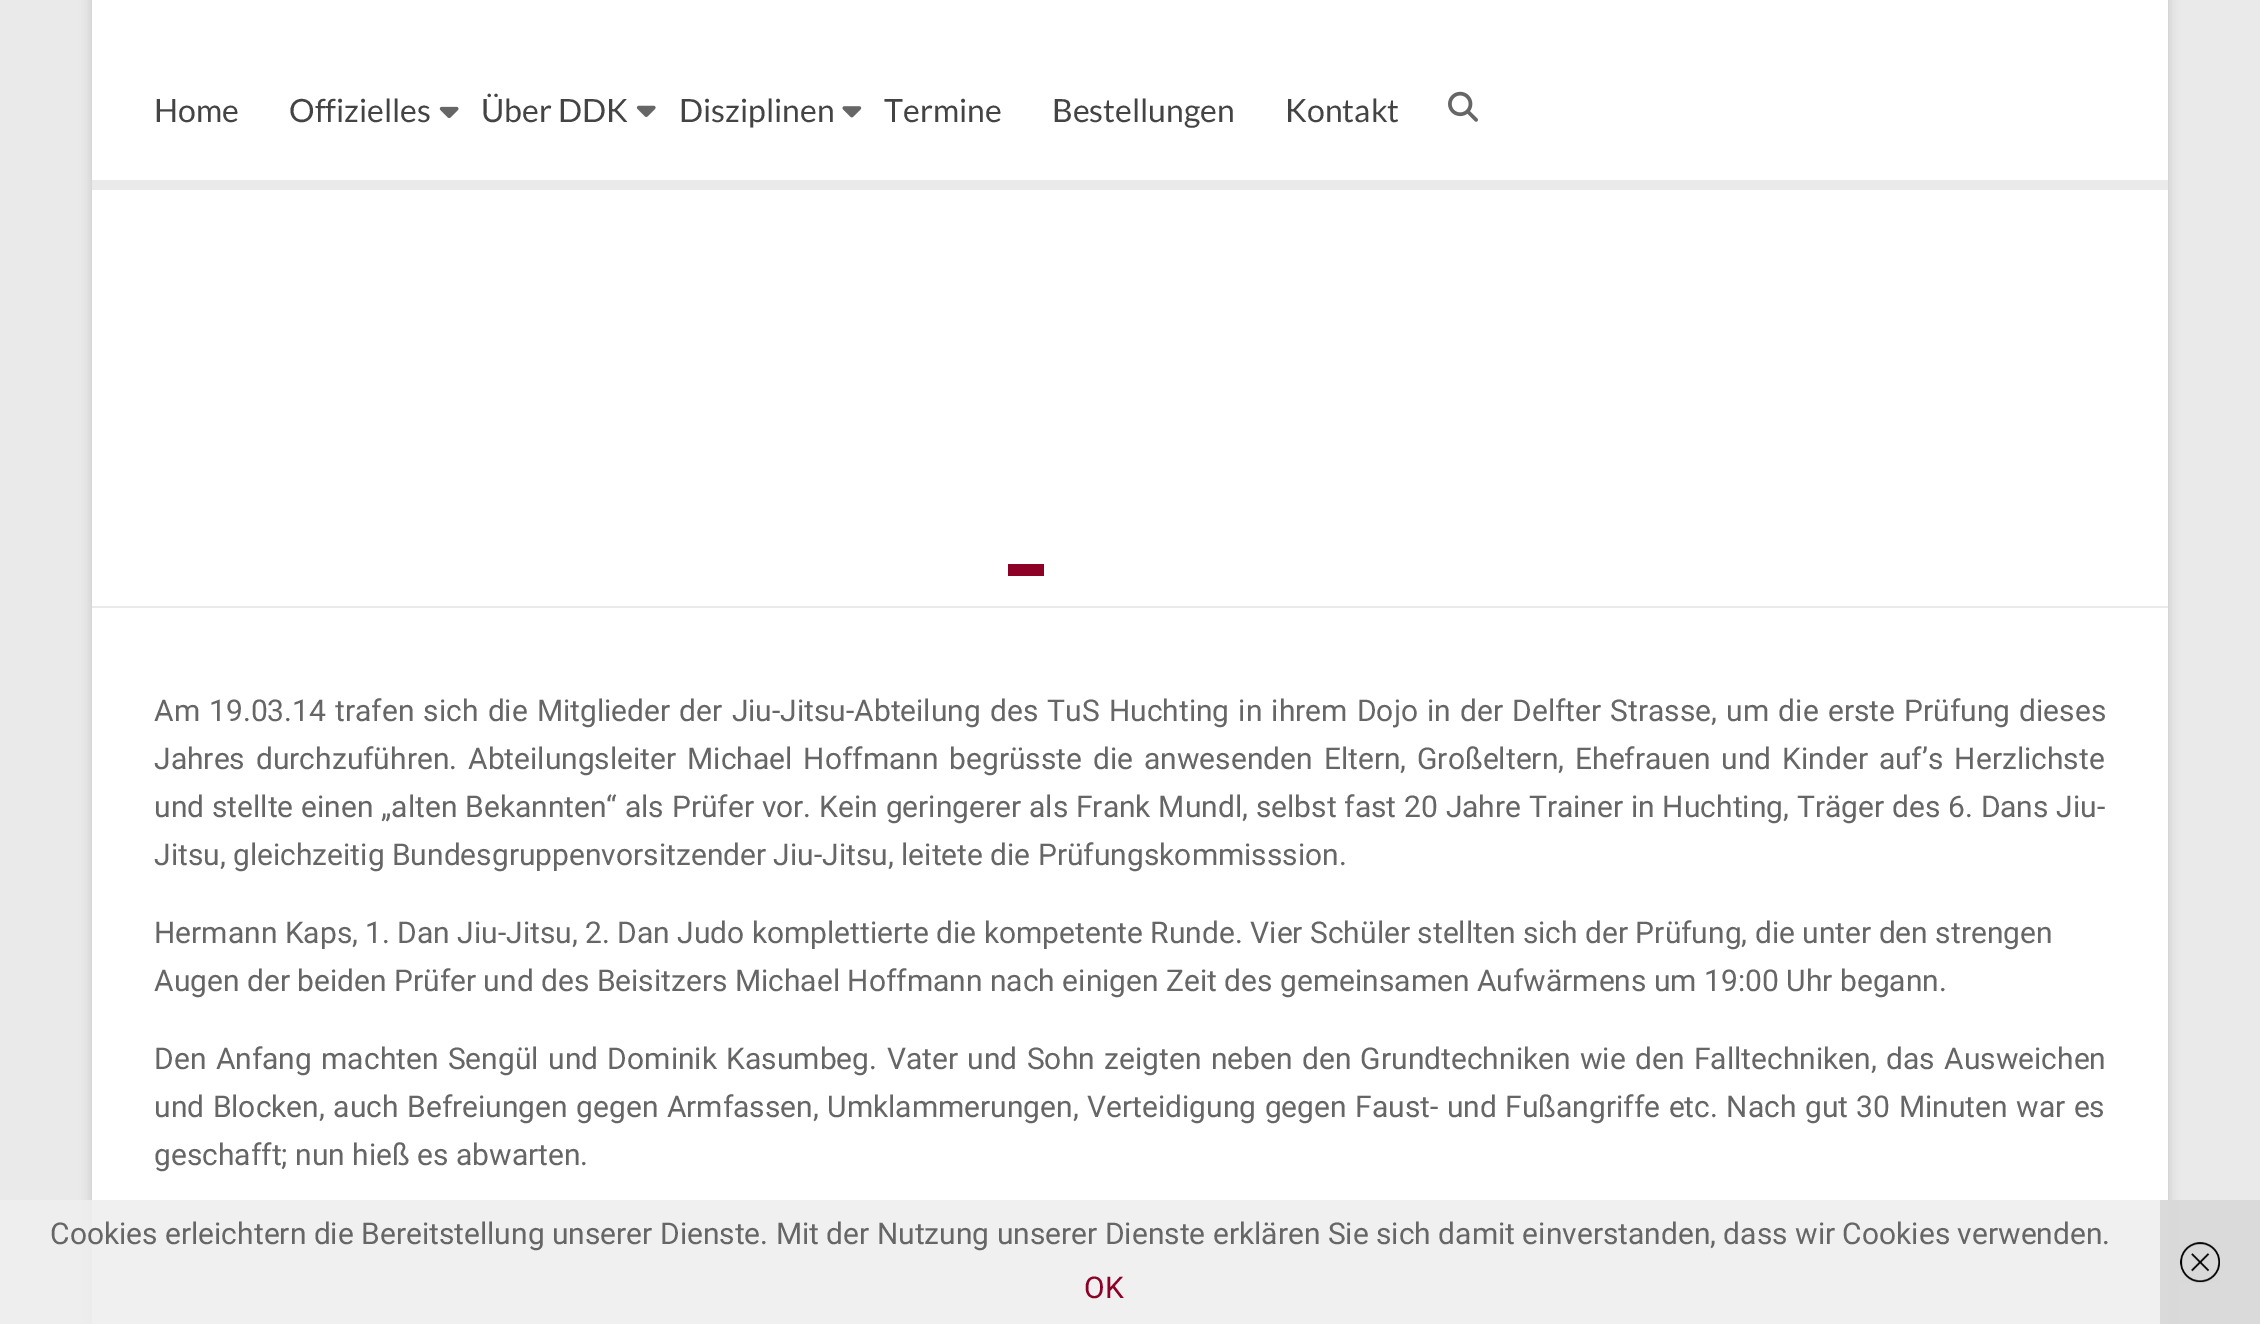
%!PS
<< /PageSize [2260 1324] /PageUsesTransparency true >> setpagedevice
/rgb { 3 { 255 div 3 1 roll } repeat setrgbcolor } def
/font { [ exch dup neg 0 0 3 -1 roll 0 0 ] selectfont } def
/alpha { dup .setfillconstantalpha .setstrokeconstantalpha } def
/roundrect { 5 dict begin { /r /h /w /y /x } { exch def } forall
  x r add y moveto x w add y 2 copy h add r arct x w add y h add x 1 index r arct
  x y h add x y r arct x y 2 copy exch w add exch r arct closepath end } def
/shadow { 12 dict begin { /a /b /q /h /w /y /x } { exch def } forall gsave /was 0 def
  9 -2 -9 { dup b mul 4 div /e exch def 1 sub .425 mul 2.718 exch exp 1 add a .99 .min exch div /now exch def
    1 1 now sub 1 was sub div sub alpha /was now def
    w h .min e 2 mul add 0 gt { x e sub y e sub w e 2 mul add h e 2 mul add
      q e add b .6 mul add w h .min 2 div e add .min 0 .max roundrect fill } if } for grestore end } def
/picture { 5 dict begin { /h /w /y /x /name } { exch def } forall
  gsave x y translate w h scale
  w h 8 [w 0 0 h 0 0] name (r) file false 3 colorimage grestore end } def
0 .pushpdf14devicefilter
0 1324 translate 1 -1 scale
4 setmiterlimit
234 234 234 rgb
0 0 2260 1324 rectfill
100 100 100 rgb
92 -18 2076 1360 0 6 0.3 shadow
255 255 255 rgb
92 0 2076 1324 rectfill
234 234 234 rgb
92 180 2076 10 rectfill
(img/1.rgb) 439 106 20 13 picture
(img/2.rgb) 636 105 20 12 picture
(img/3.rgb) 842 106 20 12 picture
(img/4.rgb) 1448 91 30 31 picture
[
  [92 606 2076 2 234 234 234]
  [1008 564 36 12 142 1 39]
] { aload pop rgb rectfill } forall
0.9 alpha
[
  [0 1200 2260 124 238 238 238]
] { aload pop rgb rectfill } forall
0.6 alpha
[
  [2160 1200 100 124 204 204 204]
] { aload pop rgb rectfill } forall
1 alpha
(img/5.rgb) 2180 1242 40 41 picture
/Lato-Regular 32 font
68 68 68 rgb
[
  [(Home) 154 122]
  [(Offizielles) 289 122]
  [(Über DDK) 481 122]
  [(Disziplinen) 679 122]
  [(Termine) 884 122]
  [(Bestellungen) 1052 122]
  [(Kontakt) 1285 122]
] { aload pop moveto show } forall
/Roboto-Regular 30 font
102 102 102 rgb
154 721 moveto 1.75 0 32 (Am 19.03.14 trafen sich die Mitglieder der Jiu-Jitsu-Abteilung des TuS Huchting in ihrem Dojo in der Delfter Strasse, um die erste Prüfung dieses) widthshow
154 769 moveto 3.5 0 32 (Jahres durchzuführen. Abteilungsleiter Michael Hoffmann begrüsste die anwesenden Eltern, Großeltern, Ehefrauen und Kinder auf’s Herzlichste) widthshow
154 817 moveto 0.4 0 32 (und stellte einen „alten Bekannten“ als Prüfer vor. Kein geringerer als Frank Mundl, selbst fast 20 Jahre Trainer in Huchting, Träger des 6. Dans Jiu-) widthshow
[
  [(Jitsu, gleichzeitig Bundesgruppenvorsitzender Jiu-Jitsu, leitete die Prüfungskommisssion.) 154 865]
  [(Hermann Kaps, 1. Dan Jiu-Jitsu, 2. Dan Judo komplettierte die kompetente Runde. Vier Schüler stellten sich der Prüfung, die unter den strengen) 154 943]
  [(Augen der beiden Prüfer und des Beisitzers Michael Hoffmann nach einigen Zeit des gemeinsamen Aufwärmens um 19:00 Uhr begann.) 154 991]
] { aload pop moveto show } forall
154 1069 moveto 2 0 32 (Den Anfang machten Sengül und Dominik Kasumbeg. Vater und Sohn zeigten neben den Grundtechniken wie den Falltechniken, das Ausweichen) widthshow
154 1117 moveto 1.1 0 32 (und Blocken, auch Befreiungen gegen Armfassen, Umklammerungen, Verteidigung gegen Faust- und Fußangriffe etc. Nach gut 30 Minuten war es) widthshow
154 1165 moveto (geschafft; nun hieß es abwarten.) show
50 1244 moveto (Cookies erleichtern die Bereitstellung unserer Dienste. Mit der Nutzung unserer Dienste erklären Sie sich damit einverstanden, dass wir Cookies verwenden.) show
142 1 39 rgb
1084 1298 moveto (OK) show
.poppdf14devicefilter showpage
